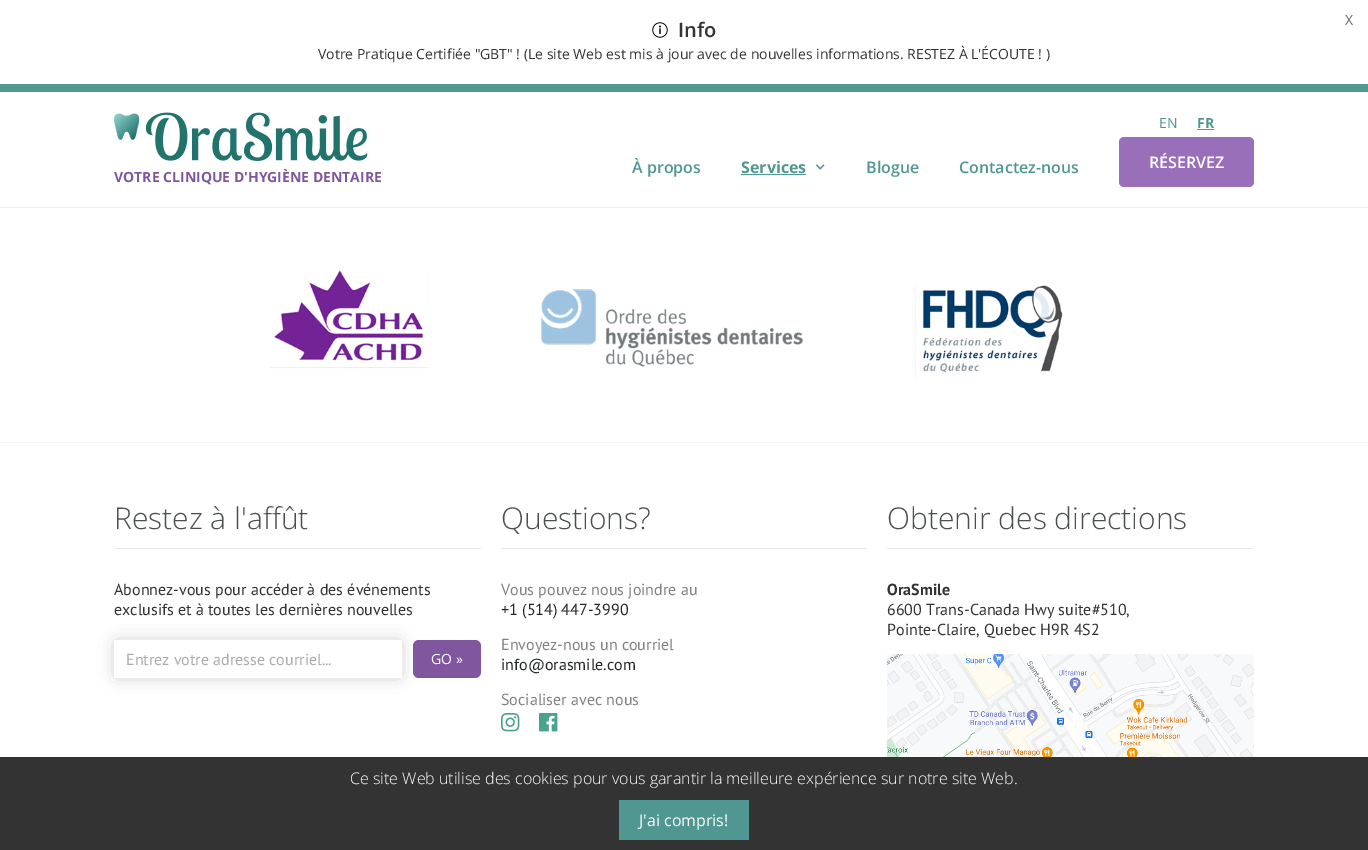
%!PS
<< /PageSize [1368 850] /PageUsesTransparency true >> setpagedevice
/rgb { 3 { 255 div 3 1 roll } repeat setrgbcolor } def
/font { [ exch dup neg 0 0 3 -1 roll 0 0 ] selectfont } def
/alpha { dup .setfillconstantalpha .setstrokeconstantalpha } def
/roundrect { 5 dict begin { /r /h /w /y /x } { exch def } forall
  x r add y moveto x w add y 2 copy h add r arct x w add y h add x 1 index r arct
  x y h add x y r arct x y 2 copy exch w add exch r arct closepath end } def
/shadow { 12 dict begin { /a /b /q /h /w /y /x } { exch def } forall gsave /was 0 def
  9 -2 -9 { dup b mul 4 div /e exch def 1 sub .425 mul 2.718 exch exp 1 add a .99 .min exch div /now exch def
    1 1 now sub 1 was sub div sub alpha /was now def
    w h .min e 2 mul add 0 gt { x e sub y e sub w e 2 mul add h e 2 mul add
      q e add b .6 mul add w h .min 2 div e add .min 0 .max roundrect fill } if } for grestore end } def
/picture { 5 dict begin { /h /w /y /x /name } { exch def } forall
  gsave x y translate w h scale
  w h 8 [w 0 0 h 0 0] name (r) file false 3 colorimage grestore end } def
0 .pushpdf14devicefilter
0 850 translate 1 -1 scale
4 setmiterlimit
255 255 255 rgb
0 0 1368 850 rectfill
(img/1.rgb) 652 22 16 16 picture
80 151 145 rgb
0 84 1368 8 rectfill
224 245 241 rgb
0 207 1368 1 rectfill
(img/2.rgb) 114 112 254 49 picture
80 151 145 rgb
741 174 65 1 rectfill
(img/3.rgb) 815 164 10 6 picture
1197 129 17 1 rectfill
154 111 186 rgb
1119 137 135 50 5 roundrect fill
(img/4.rgb) 269 270 794 108 picture
245 245 245 rgb
0 442 1368 1 rectfill
233 233 233 rgb
114 548 367 1 rectfill
gsave
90 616 moveto 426 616 lineto 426 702 lineto 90 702 lineto closepath 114 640 moveto 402 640 lineto 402 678 lineto 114 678 lineto closepath eoclip newpath
187 187 187 rgb
117 643 282 32 0 8.5 1 shadow
grestore
128 87 158 rgb
413 640 68 38 6 roundrect fill
233 233 233 rgb
501 548 366 1 rectfill
(img/5.rgb) 501 713 19 19 picture
(img/6.rgb) 539 713 19 19 picture
887 548 367 1 rectfill
(img/7.rgb) 887 654 367 103 picture
51 51 51 rgb
0 757 1368 93 rectfill
80 151 145 rgb
619 800 130 40 rectfill
/OpenSans-Regular 14 font
105 105 105 rgb
1345 25 moveto (X) show
/OpenSans-SemiBold 20 font
51 51 51 rgb
678 37 moveto (Info) show
/OpenSans-Regular 14 font
318 59 moveto (Votre Pratique Certifiée "GBT" ! \(Le site Web est mis à jour avec de nouvelles informations. RESTEZ À L'ÉCOUTE ! \)) show
/OpenSans-Bold 14 font
128 87 158 rgb
114 182 moveto (VOTRE CLINIQUE D'HYGIÈNE DENTAIRE) show
/OpenSans-SemiBold 16 font
80 151 145 rgb
632 173 moveto (À propos) show
/OpenSans-Bold 16 font
741 173 moveto (Services) show
/OpenSans-SemiBold 16 font
866 173 moveto (Blogue) show
959 173 moveto (Contactez-nous) show
/OpenSans-Regular 14 font
1159 128 moveto (EN) show
/OpenSans-Bold 14 font
1197 128 moveto (FR) show
/OpenSans-SemiBold 16 font
255 255 255 rgb
1149 168 moveto (RÉSERVEZ) show
/OpenSans-Light 30 font
75 79 78 rgb
114 529 moveto (Restez à l'affût) show
/PTSans-Regular 16 font
51 51 51 rgb
114 595 moveto (Abonnez-vous pour accéder à des événements) show
114 615 moveto (exclusifs et à toutes les dernières nouvelles) show
172 172 172 rgb
126 665 moveto (Entrez votre adresse courriel...) show
/OpenSans-Regular 14 font
255 255 255 rgb
431 664 moveto (GO ») show
/OpenSans-Light 30 font
75 79 78 rgb
501 529 moveto (Questions?) show
/PTSans-Regular 16 font
130 130 130 rgb
501 595 moveto (Vous pouvez nous joindre au) show
35 40 38 rgb
501 615 moveto (+1 \(514\) 447-3990) show
130 130 130 rgb
501 650 moveto (Envoyez-nous un courriel) show
35 40 38 rgb
501 670 moveto (info@orasmile.com) show
130 130 130 rgb
501 705 moveto (Socialiser avec nous) show
/OpenSans-Light 30 font
75 79 78 rgb
887 529 moveto (Obtenir des directions) show
/PTSans-Bold 16 font
51 51 51 rgb
887 595 moveto (OraSmile) show
/PTSans-Regular 16 font
887 615 moveto (6600 Trans-Canada Hwy suite#510,) show
887 635 moveto (Pointe-Claire, Quebec H9R 4S2) show
/OpenSans-Light 16 font
255 255 255 rgb
350 784 moveto (Ce site Web utilise des cookies pour vous garantir la meilleure expérience sur notre site Web.) show
/OpenSans-Regular 16 font
639 826 moveto (J'ai compris!) show
.poppdf14devicefilter showpage
